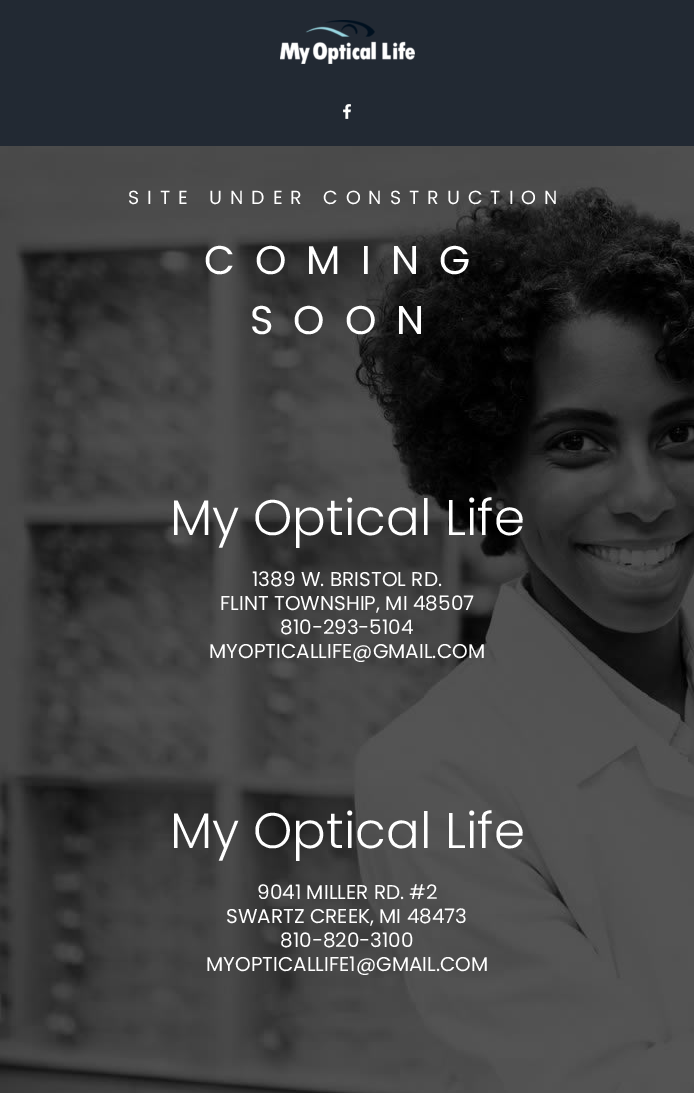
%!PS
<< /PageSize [694 1093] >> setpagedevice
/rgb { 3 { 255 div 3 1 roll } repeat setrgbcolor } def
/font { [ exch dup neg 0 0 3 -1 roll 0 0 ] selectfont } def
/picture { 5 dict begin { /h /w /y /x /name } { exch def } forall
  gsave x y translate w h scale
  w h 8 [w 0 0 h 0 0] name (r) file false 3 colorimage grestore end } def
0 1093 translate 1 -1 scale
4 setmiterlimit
255 255 255 rgb
0 0 694 1093 rectfill
34 41 51 rgb
0 0 694 146 rectfill
(img/1.rgb) 280 20 135 44 picture
(img/2.rgb) 343 104 8 15 picture
(img/3.rgb) 0 146 694 947 picture
/Poppins-Regular 19 font
255 255 255 rgb
128 204 moveto 8 0 (SITE UNDER CONSTRUCTION) ashow
/Poppins-Regular 40 font
204 274 moveto 20 0 (COMING) ashow
250 334 moveto 20 0 (SOON) ashow
/Poppins-Light 50 font
170 535 moveto (My Optical Life) show
/Poppins-Regular 20 font
[
  [(1389 W. BRISTOL RD.) 252 586]
  [(FLINT TOWNSHIP, MI 48507) 220 610]
  [(810-293-5104) 280 634]
  [(MYOPTICALLIFE@GMAIL.COM) 209 658]
] { aload pop moveto show } forall
/Poppins-Light 50 font
170 848 moveto (My Optical Life) show
/Poppins-Regular 20 font
[
  [(9041 MILLER RD. #2) 257 899]
  [(SWARTZ CREEK, MI 48473) 226 923]
  [(810-820-3100) 280 947]
  [(MYOPTICALLIFE1@GMAIL.COM) 206 971]
] { aload pop moveto show } forall
showpage
